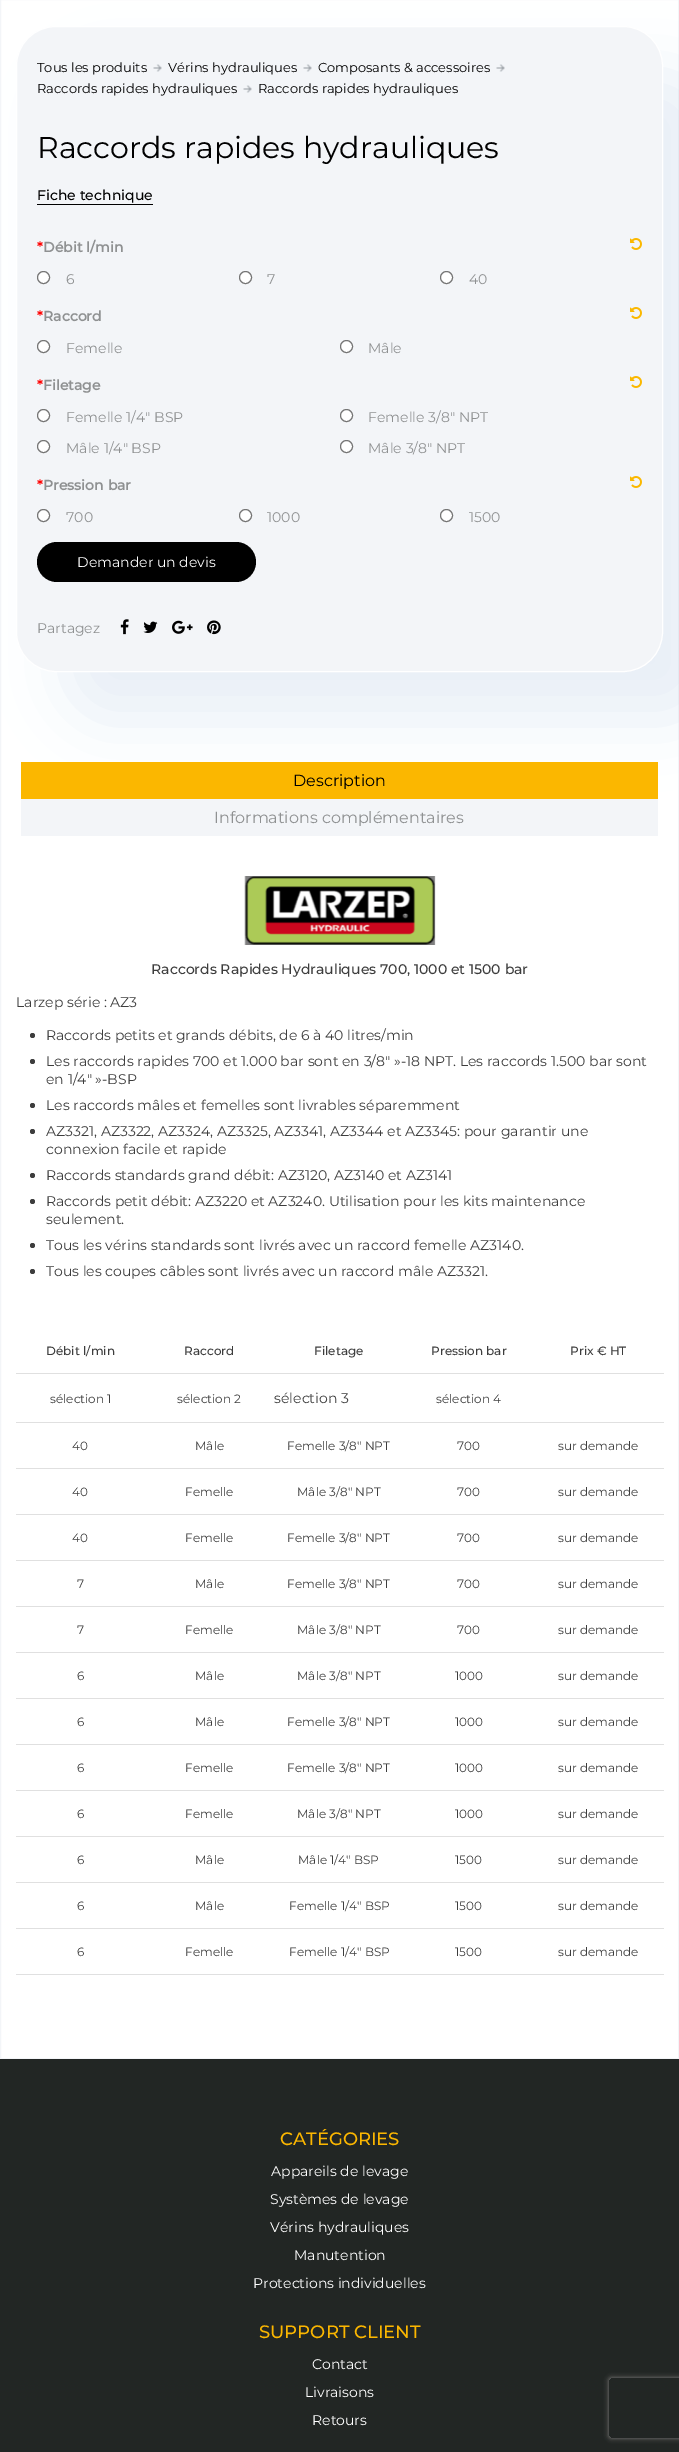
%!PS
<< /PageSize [679 2452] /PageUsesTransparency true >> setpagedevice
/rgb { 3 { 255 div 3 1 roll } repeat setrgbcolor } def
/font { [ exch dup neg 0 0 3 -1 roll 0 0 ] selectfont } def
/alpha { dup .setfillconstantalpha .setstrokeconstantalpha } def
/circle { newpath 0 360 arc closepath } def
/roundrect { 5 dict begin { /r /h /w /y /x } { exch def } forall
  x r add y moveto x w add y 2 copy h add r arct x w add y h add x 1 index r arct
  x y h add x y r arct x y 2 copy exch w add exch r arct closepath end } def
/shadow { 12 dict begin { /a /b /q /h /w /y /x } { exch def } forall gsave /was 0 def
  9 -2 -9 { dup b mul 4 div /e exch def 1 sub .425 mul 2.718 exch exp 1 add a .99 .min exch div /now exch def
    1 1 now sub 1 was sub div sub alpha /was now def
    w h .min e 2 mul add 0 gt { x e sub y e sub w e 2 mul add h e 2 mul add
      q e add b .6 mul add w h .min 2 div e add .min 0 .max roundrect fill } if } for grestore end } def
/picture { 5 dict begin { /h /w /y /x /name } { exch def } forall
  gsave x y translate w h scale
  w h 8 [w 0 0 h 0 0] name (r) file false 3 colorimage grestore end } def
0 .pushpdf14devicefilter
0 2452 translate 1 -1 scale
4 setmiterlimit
255 255 255 rgb
0 0 679 2452 rectfill
243 245 248 rgb
0.5 -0.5 678 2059 rectstroke
120 150 201 rgb
64 74 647 646 40 32 0.16 shadow
243 245 248 rgb
16.5 26.5 646 645 39.5 roundrect gsave fill grestore
255 255 255 rgb
stroke
(img/1.rgb) 153 64 9 8 picture
(img/1.rgb) 303 64 9 8 picture
(img/1.rgb) 496 64 9 8 picture
(img/1.rgb) 243 85 9 8 picture
0 0 0 rgb
37 204 116 1 rectfill
(img/2.rgb) 630 238 12 12 picture
255 255 255 rgb
43.5 277.5 6 circle gsave fill grestore
118 118 118 rgb
stroke
255 255 255 rgb
245.5 277.5 6 circle gsave fill grestore
118 118 118 rgb
stroke
255 255 255 rgb
446.5 277.5 6 circle gsave fill grestore
118 118 118 rgb
stroke
(img/2.rgb) 630 307 12 12 picture
255 255 255 rgb
43.5 346.5 6 circle gsave fill grestore
118 118 118 rgb
stroke
255 255 255 rgb
346.5 346.5 6 circle gsave fill grestore
118 118 118 rgb
stroke
(img/2.rgb) 630 376 12 12 picture
255 255 255 rgb
43.5 415.5 6 circle gsave fill grestore
118 118 118 rgb
stroke
255 255 255 rgb
346.5 415.5 6 circle gsave fill grestore
118 118 118 rgb
stroke
255 255 255 rgb
43.5 446.5 6 circle gsave fill grestore
118 118 118 rgb
stroke
255 255 255 rgb
346.5 446.5 6 circle gsave fill grestore
118 118 118 rgb
stroke
(img/2.rgb) 630 476 12 12 picture
255 255 255 rgb
43.5 515.5 6 circle gsave fill grestore
118 118 118 rgb
stroke
255 255 255 rgb
245.5 515.5 6 circle gsave fill grestore
118 118 118 rgb
stroke
255 255 255 rgb
446.5 515.5 6 circle gsave fill grestore
118 118 118 rgb
stroke
0 0 0 rgb
37 542 219 40 20 roundrect fill
(img/3.rgb) 120 619 9 16 picture
(img/4.rgb) 143 621 15 12 picture
(img/5.rgb) 172 620 21 14 picture
(img/6.rgb) 207 620 14 15 picture
251 183 0 rgb
21 762 637 37 rectfill
243 245 248 rgb
21 799 637 37 rectfill
(img/7.rgb) 244 876 192 69 picture
61 61 61 rgb
32.5 1035.5 2.5 circle fill
32.5 1061.5 2.5 circle fill
32.5 1105.5 2.5 circle fill
32.5 1131.5 2.5 circle fill
32.5 1175.5 2.5 circle fill
32.5 1201.5 2.5 circle fill
32.5 1245.5 2.5 circle fill
32.5 1271.5 2.5 circle fill
[
  [16 1373 648 1 224 224 224]
  [16 1422 648 1 224 224 224]
  [16 1468 648 1 224 224 224]
  [16 1514 648 1 224 224 224]
  [16 1560 648 1 224 224 224]
  [16 1606 648 1 224 224 224]
  [16 1652 648 1 224 224 224]
  [16 1698 648 1 224 224 224]
  [16 1744 648 1 224 224 224]
  [16 1790 648 1 224 224 224]
  [16 1836 648 1 224 224 224]
  [16 1882 648 1 224 224 224]
  [16 1928 648 1 224 224 224]
  [16 1974 648 1 224 224 224]
  [0 2059 679 393 34 38 36]
] { aload pop rgb rectfill } forall
gsave
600 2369 moveto 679 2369 lineto 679 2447 lineto 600 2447 lineto closepath 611 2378 moveto 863 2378 lineto 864 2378 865 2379 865 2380 curveto 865 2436 lineto 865 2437 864 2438 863 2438 curveto 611 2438 lineto 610 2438 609 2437 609 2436 curveto 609 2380 lineto 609 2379 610 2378 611 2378 curveto closepath eoclip newpath
128 128 128 rgb
609 2378 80 60 2 2.5 1 shadow
grestore
/Montserrat-Regular 13 font
0 0 0 rgb
[
  [(Tous les produits) 37 72]
  [(Vérins hydrauliques) 168 72]
  [(Composants & accessoires) 318 72]
  [(Raccords rapides hydrauliques) 37 93]
  [(Raccords rapides hydrauliques) 258 93]
] { aload pop moveto show } forall
/Montserrat-Regular 30 font
37 158 moveto (Raccords rapides hydrauliques) show
/Montserrat-Medium 14 font
37 200 moveto (Fiche technique) show
/Montserrat-Bold 14 font
255 0 0 rgb
37 252 moveto (*) show
143 145 146 rgb
43 252 moveto (Débit l/min) show
/Montserrat-Regular 14 font
[
  [(6) 66 284]
  [(7) 267 284]
  [(40) 469 284]
] { aload pop moveto show } forall
/Montserrat-Bold 14 font
255 0 0 rgb
37 321 moveto (*) show
143 145 146 rgb
43 321 moveto (Raccord) show
/Montserrat-Regular 14 font
66 353 moveto (Femelle) show
368 353 moveto (Mâle) show
/Montserrat-Bold 14 font
255 0 0 rgb
37 390 moveto (*) show
143 145 146 rgb
43 390 moveto (Filetage) show
/Montserrat-Regular 14 font
[
  [(Femelle 1/4″ BSP) 66 422]
  [(Femelle 3/8″ NPT) 368 422]
  [(Mâle 1/4″ BSP) 66 453]
  [(Mâle 3/8″ NPT) 368 453]
] { aload pop moveto show } forall
/Montserrat-Bold 14 font
255 0 0 rgb
37 490 moveto (*) show
143 145 146 rgb
43 490 moveto (Pression bar) show
/Montserrat-Regular 14 font
[
  [(700) 66 522]
  [(1000) 267 522]
  [(1500) 469 522]
] { aload pop moveto show } forall
255 255 255 rgb
77 567 moveto (Demander un devis) show
143 145 146 rgb
37 633 moveto (Partagez) show
/Montserrat-Regular 16 font
0 0 0 rgb
293 786 moveto (Description) show
143 145 146 rgb
214 823 moveto (Informations complémentaires) show
/Montserrat-Medium 14 font
61 61 61 rgb
151 974 moveto (Raccords Rapides Hydrauliques 700, 1000 et 1500 bar) show
/Montserrat-Regular 14 font
[
  [(Larzep série : AZ3) 16 1007]
  [(Raccords petits et grands débits, de 6 à 40 litres/min) 46 1040]
  [(Les raccords rapides 700 et 1.000 bar sont en 3/8″ »-18 NPT. Les raccords 1.500 bar sont) 46 1066]
  [(en 1/4″ »-BSP) 46 1084]
  [(Les raccords mâles et femelles sont livrables séparemment) 46 1110]
  [(AZ3321, AZ3322, AZ3324, AZ3325, AZ3341, AZ3344 et AZ3345: pour garantir une) 46 1136]
  [(connexion facile et rapide) 46 1154]
  [(Raccords standards grand débit: AZ3120, AZ3140 et AZ3141) 46 1180]
  [(Raccords petit débit: AZ3220 et AZ3240. Utilisation pour les kits maintenance) 46 1206]
  [(seulement.) 46 1224]
  [(Tous les vérins standards sont livrés avec un raccord femelle AZ3140.) 46 1250]
  [(Tous les coupes câbles sont livrés avec un raccord mâle AZ3321.) 46 1276]
] { aload pop moveto show } forall
/Montserrat-Medium 12 font
[
  [(Débit l/min) 46 1355]
  [(Raccord) 184 1355]
  [(Filetage) 314 1355]
  [(Pression bar) 431 1355]
  [(Prix € HT) 570 1355]
] { aload pop moveto show } forall
/Montserrat-Regular 12 font
50 1403 moveto (sélection 1) show
177 1403 moveto (sélection 2) show
/Montserrat-Regular 14 font
274 1403 moveto (sélection 3) show
/Montserrat-Regular 12 font
[
  [(sélection 4) 436 1403]
  [(40) 72 1450]
  [(Mâle) 195 1450]
  [(Femelle 3/8″ NPT) 287 1450]
  [(700) 457 1450]
  [(sur demande) 558 1450]
  [(40) 72 1496]
  [(Femelle) 185 1496]
  [(Mâle 3/8″ NPT) 297 1496]
  [(700) 457 1496]
  [(sur demande) 558 1496]
  [(40) 72 1542]
  [(Femelle) 185 1542]
  [(Femelle 3/8″ NPT) 287 1542]
  [(700) 457 1542]
  [(sur demande) 558 1542]
  [(7) 77 1588]
  [(Mâle) 195 1588]
  [(Femelle 3/8″ NPT) 287 1588]
  [(700) 457 1588]
  [(sur demande) 558 1588]
  [(7) 77 1634]
  [(Femelle) 185 1634]
  [(Mâle 3/8″ NPT) 297 1634]
  [(700) 457 1634]
  [(sur demande) 558 1634]
  [(6) 77 1680]
  [(Mâle) 195 1680]
  [(Mâle 3/8″ NPT) 297 1680]
  [(1000) 455 1680]
  [(sur demande) 558 1680]
  [(6) 77 1726]
  [(Mâle) 195 1726]
  [(Femelle 3/8″ NPT) 287 1726]
  [(1000) 455 1726]
  [(sur demande) 558 1726]
  [(6) 77 1772]
  [(Femelle) 185 1772]
  [(Femelle 3/8″ NPT) 287 1772]
  [(1000) 455 1772]
  [(sur demande) 558 1772]
  [(6) 77 1818]
  [(Femelle) 185 1818]
  [(Mâle 3/8″ NPT) 297 1818]
  [(1000) 455 1818]
  [(sur demande) 558 1818]
  [(6) 77 1864]
  [(Mâle) 195 1864]
  [(Mâle 1/4″ BSP) 298 1864]
  [(1500) 455 1864]
  [(sur demande) 558 1864]
  [(6) 77 1910]
  [(Mâle) 195 1910]
  [(Femelle 1/4″ BSP) 289 1910]
  [(1500) 455 1910]
  [(sur demande) 558 1910]
  [(6) 77 1956]
  [(Femelle) 185 1956]
  [(Femelle 1/4″ BSP) 289 1956]
  [(1500) 455 1956]
  [(sur demande) 558 1956]
] { aload pop moveto show } forall
/Montserrat-Medium 18 font
251 182 0 rgb
280 2145 moveto (CATÉGORIES) show
/Montserrat-Regular 14 font
255 255 255 rgb
[
  [(Appareils de levage) 271 2176]
  [(Systèmes de levage) 270 2204]
  [(Vérins hydrauliques) 270 2232]
  [(Manutention) 294 2260]
  [(Protections individuelles) 253 2288]
] { aload pop moveto show } forall
/Montserrat-Medium 18 font
251 182 0 rgb
259 2338 moveto (SUPPORT CLIENT) show
/Montserrat-Regular 14 font
255 255 255 rgb
[
  [(Contact) 312 2369]
  [(Livraisons) 305 2397]
  [(Retours) 312 2425]
] { aload pop moveto show } forall
.poppdf14devicefilter showpage
